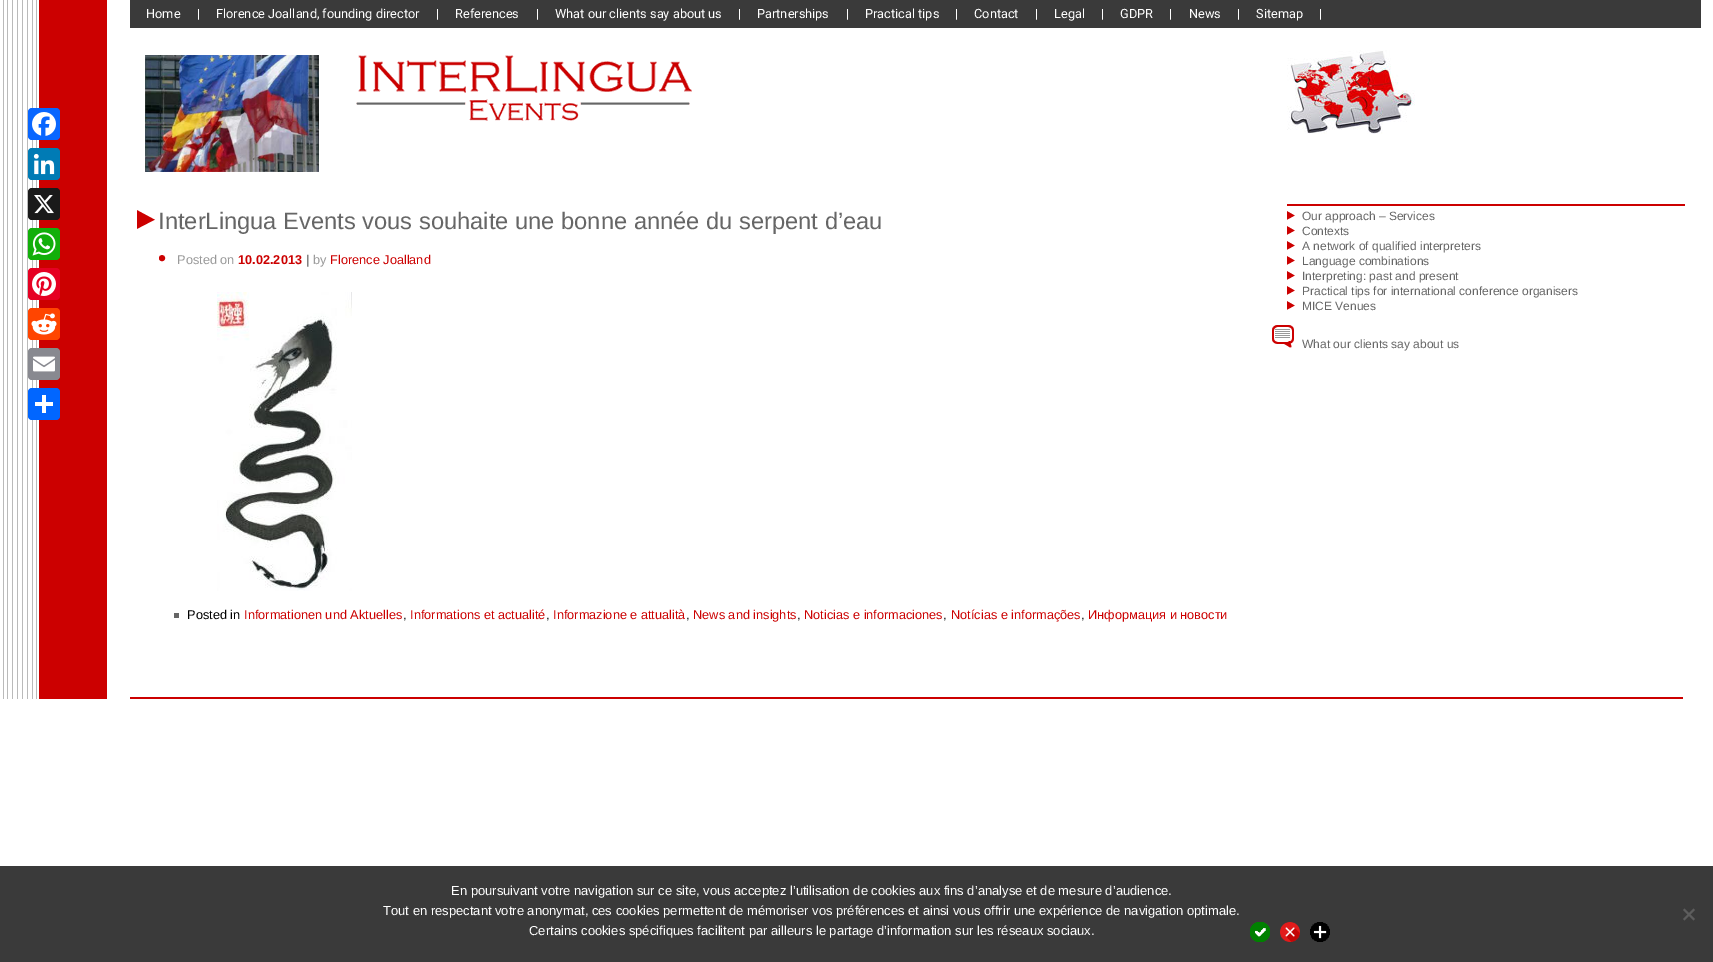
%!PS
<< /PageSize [1713 962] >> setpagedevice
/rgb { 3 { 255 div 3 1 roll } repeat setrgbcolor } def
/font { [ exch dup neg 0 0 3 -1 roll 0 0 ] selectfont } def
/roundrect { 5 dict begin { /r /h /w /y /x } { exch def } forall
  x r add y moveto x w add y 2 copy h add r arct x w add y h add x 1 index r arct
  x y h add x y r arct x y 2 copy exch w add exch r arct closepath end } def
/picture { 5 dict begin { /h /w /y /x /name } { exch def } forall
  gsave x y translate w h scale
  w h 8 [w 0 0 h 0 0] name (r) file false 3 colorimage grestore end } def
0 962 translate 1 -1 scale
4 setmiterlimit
255 255 255 rgb
0 0 1713 962 rectfill
(img/8.rgb) 3 0 36 699 picture
204 0 0 rgb
39 0 68 699 rectfill
8 102 255 rgb
28 108 32 32 4 roundrect fill
(img/1.rgb) 32 112 24 24 picture
0 123 181 rgb
28 148 32 32 4 roundrect fill
(img/2.rgb) 33 153 22 22 picture
26 26 26 rgb
28 188 32 32 4 roundrect fill
(img/3.rgb) 34 195 20 19 picture
18 175 10 rgb
28 228 32 32 4 roundrect fill
(img/4.rgb) 32 232 24 24 picture
230 0 35 rgb
28 268 32 32 4 roundrect fill
(img/5.rgb) 32 272 24 24 picture
255 69 0 rgb
28 308 32 32 4 roundrect fill
(img/6.rgb) 31 313 26 22 picture
136 137 144 rgb
28 348 32 32 4 roundrect fill
(img/7.rgb) 33 356 22 16 picture
1 102 255 rgb
28 388 32 32 4 roundrect fill
[
  [42 395 4 18 255 255 255]
  [35 402 18 4 255 255 255]
  [130 0 1571 28 58 58 58]
] { aload pop rgb rectfill } forall
(img/9.rgb) 145 55 174 117 picture
(img/10.rgb) 356 55 336 66 picture
(img/11.rgb) 137 210 18 19 picture
(img/12.rgb) 159 255 7 7 picture
(img/13.rgb) 217 292 135 299 picture
102 102 102 rgb
174 613 5 5 rectfill
(img/14.rgb) 1287 50 128 84 picture
204 0 0 rgb
1287 204 398 2 rectfill
(img/15.rgb) 1287 211 8 9 picture
(img/15.rgb) 1287 226 8 9 picture
(img/15.rgb) 1287 241 8 9 picture
(img/15.rgb) 1287 256 8 9 picture
(img/15.rgb) 1287 271 8 9 picture
(img/15.rgb) 1287 286 8 9 picture
(img/15.rgb) 1287 301 8 9 picture
(img/16.rgb) 1272 325 22 23 picture
130 697 1553 2 rectfill
58 58 58 rgb
0 866 1713 96 rectfill
93 93 93 rgb
1693.5 908.5 moveto 1695 910 lineto 1684.5 920.5 lineto 1683 919 lineto closepath fill
1683 910 moveto 1684.5 908.5 lineto 1695 919 lineto 1693.5 920.5 lineto closepath fill
(img/17.rgb) 1250 922 20 20 picture
(img/18.rgb) 1280 922 20 20 picture
(img/19.rgb) 1310 922 20 20 picture
/Roboto-Regular 12.75 font
255 255 255 rgb
[
  [(Home) 146 18]
  [(|) 197 18]
  [(Florence Joalland, founding director) 216 18]
  [(|) 436 18]
  [(References) 455 18]
  [(|) 536 18]
  [(What our clients say about us) 555 18]
  [(|) 738 18]
  [(Partnerships) 757 18]
  [(|) 846 18]
  [(Practical tips) 865 18]
  [(|) 955 18]
  [(Contact) 974 18]
  [(|) 1035 18]
  [(Legal) 1054 18]
  [(|) 1101 18]
  [(GDPR) 1120 18]
  [(|) 1169 18]
  [(News) 1189 18]
  [(|) 1237 18]
  [(Sitemap) 1256 18]
  [(|) 1319 18]
] { aload pop moveto show } forall
/LiberationSans-Regular 23.7 font
102 102 102 rgb
158 229 moveto (InterLingua Events vous souhaite une bonne année du serpent d’eau) show
/LiberationSans-Regular 12.75 font
154 154 154 rgb
177 264 moveto (Posted on) show
/LiberationSans-Bold 12.75 font
204 0 0 rgb
238 264 moveto (10.02.2013) show
130 130 130 rgb
306 264 moveto (|) show
/LiberationSans-Regular 12.75 font
154 154 154 rgb
313 264 moveto (by) show
204 0 0 rgb
330 264 moveto (Florence Joalland) show
0 0 0 rgb
187 619 moveto (Posted in) show
204 0 0 rgb
244 619 moveto (Informationen und Aktuelles) show
0 0 0 rgb
403 619 moveto (,) show
204 0 0 rgb
410 619 moveto (Informations et actualité) show
0 0 0 rgb
546 619 moveto (,) show
204 0 0 rgb
553 619 moveto (Informazione e attualità) show
0 0 0 rgb
686 619 moveto (,) show
204 0 0 rgb
693 619 moveto (News and insights) show
0 0 0 rgb
797 619 moveto (,) show
204 0 0 rgb
804 619 moveto (Noticias e informaciones) show
0 0 0 rgb
943 619 moveto (,) show
204 0 0 rgb
951 619 moveto (Notícias e informações) show
0 0 0 rgb
1081 619 moveto (,) show
204 0 0 rgb
1088 619 moveto (Информация и новости) show
/LiberationSans-Regular 12 font
102 102 102 rgb
[
  [(Our approach – Services) 1302 220]
  [(Contexts) 1302 235]
  [(A network of qualified interpreters) 1302 250]
  [(Language combinations) 1302 265]
  [(Interpreting: past and present) 1302 280]
  [(Practical tips for international conference organisers) 1302 295]
  [(MICE Venues) 1302 310]
  [(What our clients say about us) 1302 348]
] { aload pop moveto show } forall
/LiberationSans-Regular 13 font
255 255 255 rgb
[
  [(En poursuivant votre navigation sur ce site, vous acceptez l’utilisation de cookies aux fins d’analyse et de mesure d’audience.) 451 895]
  [(Tout en respectant votre anonymat, ces cookies permettent de mémoriser vos préférences et ainsi vous offrir une expérience de navigation optimale.) 383 915]
  [(Certains cookies spécifiques facilitent par ailleurs le partage d’information sur les réseaux sociaux.) 529 935]
] { aload pop moveto show } forall
showpage
